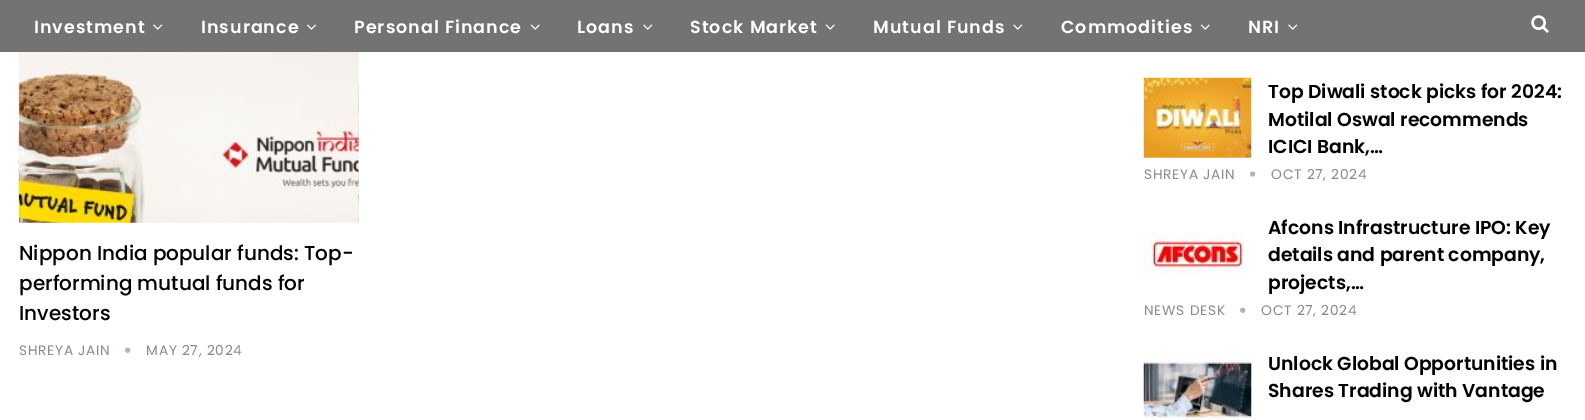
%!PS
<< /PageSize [1585 420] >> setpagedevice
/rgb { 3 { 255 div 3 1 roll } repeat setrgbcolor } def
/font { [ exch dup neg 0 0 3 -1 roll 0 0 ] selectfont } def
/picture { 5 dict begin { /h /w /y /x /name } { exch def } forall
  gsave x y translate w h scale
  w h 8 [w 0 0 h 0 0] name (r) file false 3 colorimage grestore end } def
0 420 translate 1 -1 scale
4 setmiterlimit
255 255 255 rgb
0 0 1585 420 rectfill
115 115 115 rgb
0 0 1585 52 rectfill
(img/1.rgb) 153 24 10 6 picture
(img/2.rgb) 307 24 9 6 picture
(img/3.rgb) 530 24 10 6 picture
(img/1.rgb) 643 24 10 6 picture
(img/3.rgb) 825 24 10 6 picture
(img/1.rgb) 1013 24 10 6 picture
(img/3.rgb) 1200 24 10 6 picture
(img/1.rgb) 1288 24 10 6 picture
(img/4.rgb) 1531 15 18 18 picture
(img/5.rgb) 18 52 341 171 picture
(img/6.rgb) 125 347 6 6 picture
(img/7.rgb) 1143 77 109 81 picture
(img/8.rgb) 1250 171 6 6 picture
(img/9.rgb) 1144 233 101 42 picture
(img/6.rgb) 1240 307 6 6 picture
(img/10.rgb) 1143 351 109 69 picture
/Poppins-SemiBold 17.5 font
255 255 255 rgb
34 33 moveto 1 0 (Investment) ashow
201 33 moveto 1 0 (Insurance) ashow
354 33 moveto 1 0 (Personal Finance) ashow
577 33 moveto 1 0 (Loans) ashow
690 33 moveto 1 0 (Stock Market) ashow
873 33 moveto 1 0 (Mutual Funds) ashow
1061 33 moveto 1 0 (Commodities) ashow
1248 33 moveto 1 0 (NRI) ashow
/Poppins-Medium 20 font
0 0 0 rgb
[
  [(Nippon India popular funds: Top-) 19 260]
  [(performing mutual funds for) 19 290]
  [(Investors) 19 320]
] { aload pop moveto show } forall
/Poppins-Regular 13.75 font
138 138 138 rgb
19 355 moveto 0.75 0 (SHREYA JAIN) ashow
146 355 moveto 0.75 0 (MAY 27, 2024) ashow
/Poppins-SemiBold 18.75 font
0 0 0 rgb
[
  [(Top Diwali stock picks for 2024:) 1268 98]
  [(Motilal Oswal recommends) 1268 126]
  [(ICICI Bank,…) 1268 153]
] { aload pop moveto show } forall
/Poppins-Regular 13.75 font
138 138 138 rgb
1144 179 moveto 0.75 0 (SHREYA JAIN) ashow
1271 179 moveto 0.75 0 (OCT 27, 2024) ashow
/Poppins-SemiBold 18.75 font
0 0 0 rgb
[
  [(Afcons Infrastructure IPO: Key) 1268 234]
  [(details and parent company,) 1268 261]
  [(projects,…) 1268 289]
] { aload pop moveto show } forall
/Poppins-Regular 13.75 font
138 138 138 rgb
1144 315 moveto 0.75 0 (NEWS DESK) ashow
1261 315 moveto 0.75 0 (OCT 27, 2024) ashow
/Poppins-SemiBold 18.75 font
0 0 0 rgb
1268 370 moveto (Unlock Global Opportunities in) show
1268 397 moveto (Shares Trading with Vantage) show
showpage
